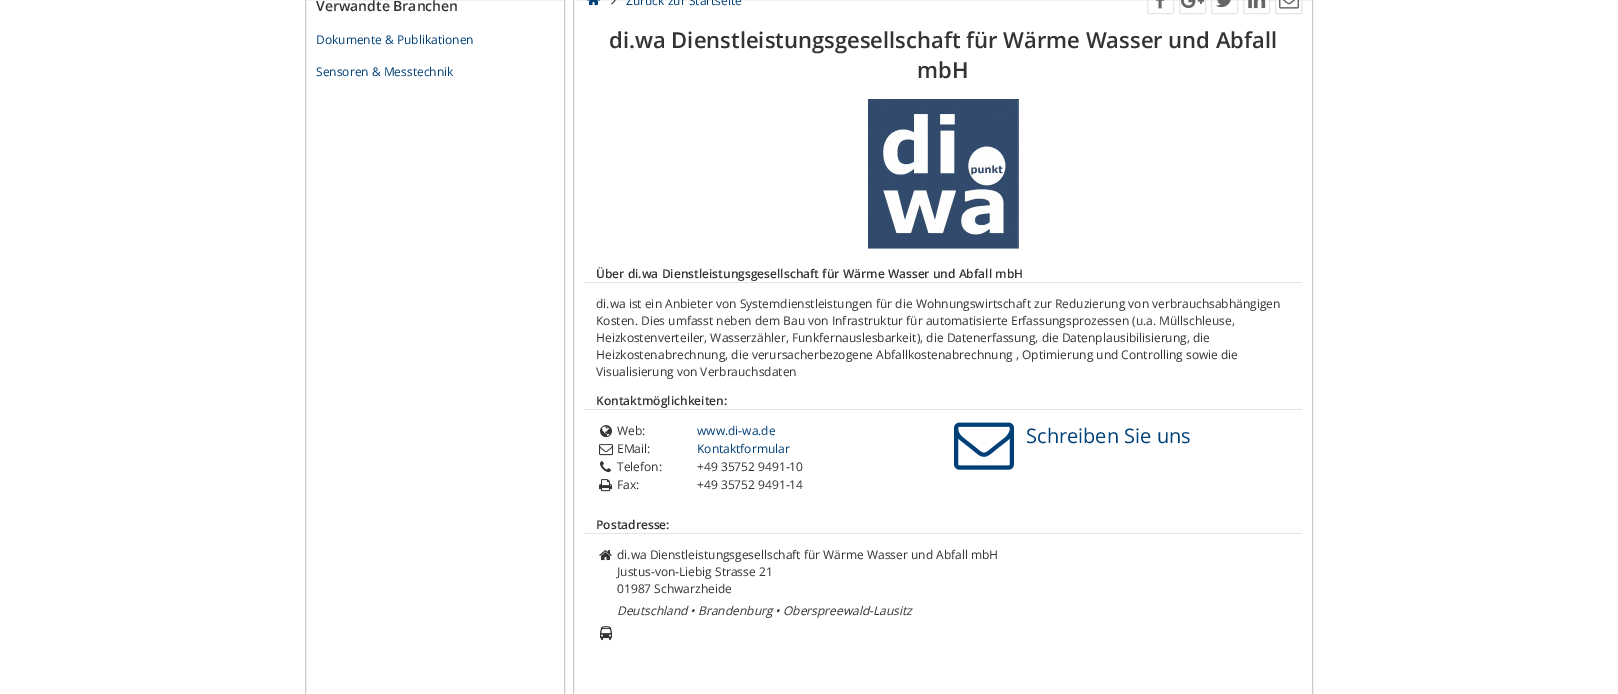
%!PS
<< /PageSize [1618 694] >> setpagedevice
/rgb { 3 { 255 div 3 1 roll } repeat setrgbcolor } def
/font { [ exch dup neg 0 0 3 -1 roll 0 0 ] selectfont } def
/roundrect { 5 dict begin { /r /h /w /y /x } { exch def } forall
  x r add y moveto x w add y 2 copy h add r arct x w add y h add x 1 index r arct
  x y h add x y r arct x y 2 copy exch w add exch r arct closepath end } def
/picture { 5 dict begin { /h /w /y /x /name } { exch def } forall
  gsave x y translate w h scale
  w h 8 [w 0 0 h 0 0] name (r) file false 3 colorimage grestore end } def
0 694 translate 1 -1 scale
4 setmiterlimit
255 255 255 rgb
0 0 1618 694 rectfill
204 204 204 rgb
305.5 -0.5 259 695 rectstroke
573.5 -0.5 739 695 rectstroke
(img/1.rgb) 587 0 13 6 picture
(img/2.rgb) 611 0 5 5 picture
230 230 230 rgb
1147.5 -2.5 26 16 1.5 roundrect stroke
(img/3.rgb) 1155 0 10 9 picture
1179.5 -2.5 26 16 1.5 roundrect stroke
(img/4.rgb) 1181 0 24 9 picture
1211.5 -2.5 26 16 1.5 roundrect stroke
(img/5.rgb) 1215 0 16 8 picture
1243.5 -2.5 26 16 1.5 roundrect stroke
(img/6.rgb) 1248 0 18 9 picture
1275.5 -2.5 26 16 1.5 roundrect stroke
(img/7.rgb) 1279 0 20 9 picture
(img/8.rgb) 868 99 151 150 picture
229 229 229 rgb
584 282 718 1 rectfill
584 409 718 1 rectfill
(img/9.rgb) 600 425 12 13 picture
(img/10.rgb) 599 444 14 12 picture
(img/11.rgb) 600 461 11 12 picture
(img/12.rgb) 599 479 13 13 picture
(img/13.rgb) 954 422 60 48 picture
584 533 718 1 rectfill
(img/14.rgb) 599 550 13 11 picture
(img/15.rgb) 600 626 12 15 picture
/OpenSans-SemiBold 14 font
51 51 51 rgb
316 11 moveto (Verwandte Branchen) show
/OpenSans-Regular 12 font
0 64 120 rgb
[
  [(Dokumente & Publikationen) 316 44]
  [(Sensoren & Messtechnik) 316 76]
  [(Zurück zur Startseite) 626 5]
] { aload pop moveto show } forall
/OpenSans-SemiBold 22 font
51 51 51 rgb
609 48 moveto (di.wa Dienstleistungsgesellschaft für Wärme Wasser und Abfall) show
917 78 moveto (mbH) show
/OpenSans-SemiBold 12 font
596 278 moveto (Über di.wa Dienstleistungsgesellschaft für Wärme Wasser und Abfall mbH) show
/OpenSans-Regular 12 font
[
  [(di.wa ist ein Anbieter von Systemdienstleistungen für die Wohnungswirtschaft zur Reduzierung von verbrauchsabhängigen) 596 308]
  [(Kosten. Dies umfasst neben dem Bau von Infrastruktur für automatisierte Erfassungsprozessen \(u.a. Müllschleuse,) 596 325]
  [(Heizkostenverteiler, Wasserzähler, Funkfernauslesbarkeit\), die Datenerfassung, die Datenplausibilisierung, die) 596 342]
  [(Heizkostenabrechnung, die verursacherbezogene Abfallkostenabrechnung , Optimierung und Controlling sowie die) 596 359]
  [(Visualisierung von Verbrauchsdaten) 596 376]
] { aload pop moveto show } forall
/OpenSans-SemiBold 12 font
596 405 moveto (Kontaktmöglichkeiten:) show
/OpenSans-Regular 12 font
617 435 moveto (Web:) show
0 64 120 rgb
697 435 moveto (www.di-wa.de) show
51 51 51 rgb
617 453 moveto (EMail:) show
0 64 120 rgb
697 453 moveto (Kontaktformular) show
51 51 51 rgb
[
  [(Telefon:) 617 471]
  [(+49 35752 9491-10) 697 471]
  [(Fax:) 617 489]
  [(+49 35752 9491-14) 697 489]
] { aload pop moveto show } forall
/OpenSans-Regular 20 font
0 64 120 rgb
1026 443 moveto (Schreiben Sie uns) show
/OpenSans-SemiBold 12 font
51 51 51 rgb
596 529 moveto (Postadresse:) show
/OpenSans-Regular 12 font
[
  [(di.wa Dienstleistungsgesellschaft für Wärme Wasser und Abfall mbH) 617 559]
  [(Justus-von-Liebig Strasse 21) 617 576]
  [(01987 Schwarzheide) 617 593]
] { aload pop moveto show } forall
/OpenSans-Italic 12 font
617 615 moveto (Deutschland • Brandenburg • Oberspreewald-Lausitz) show
showpage
